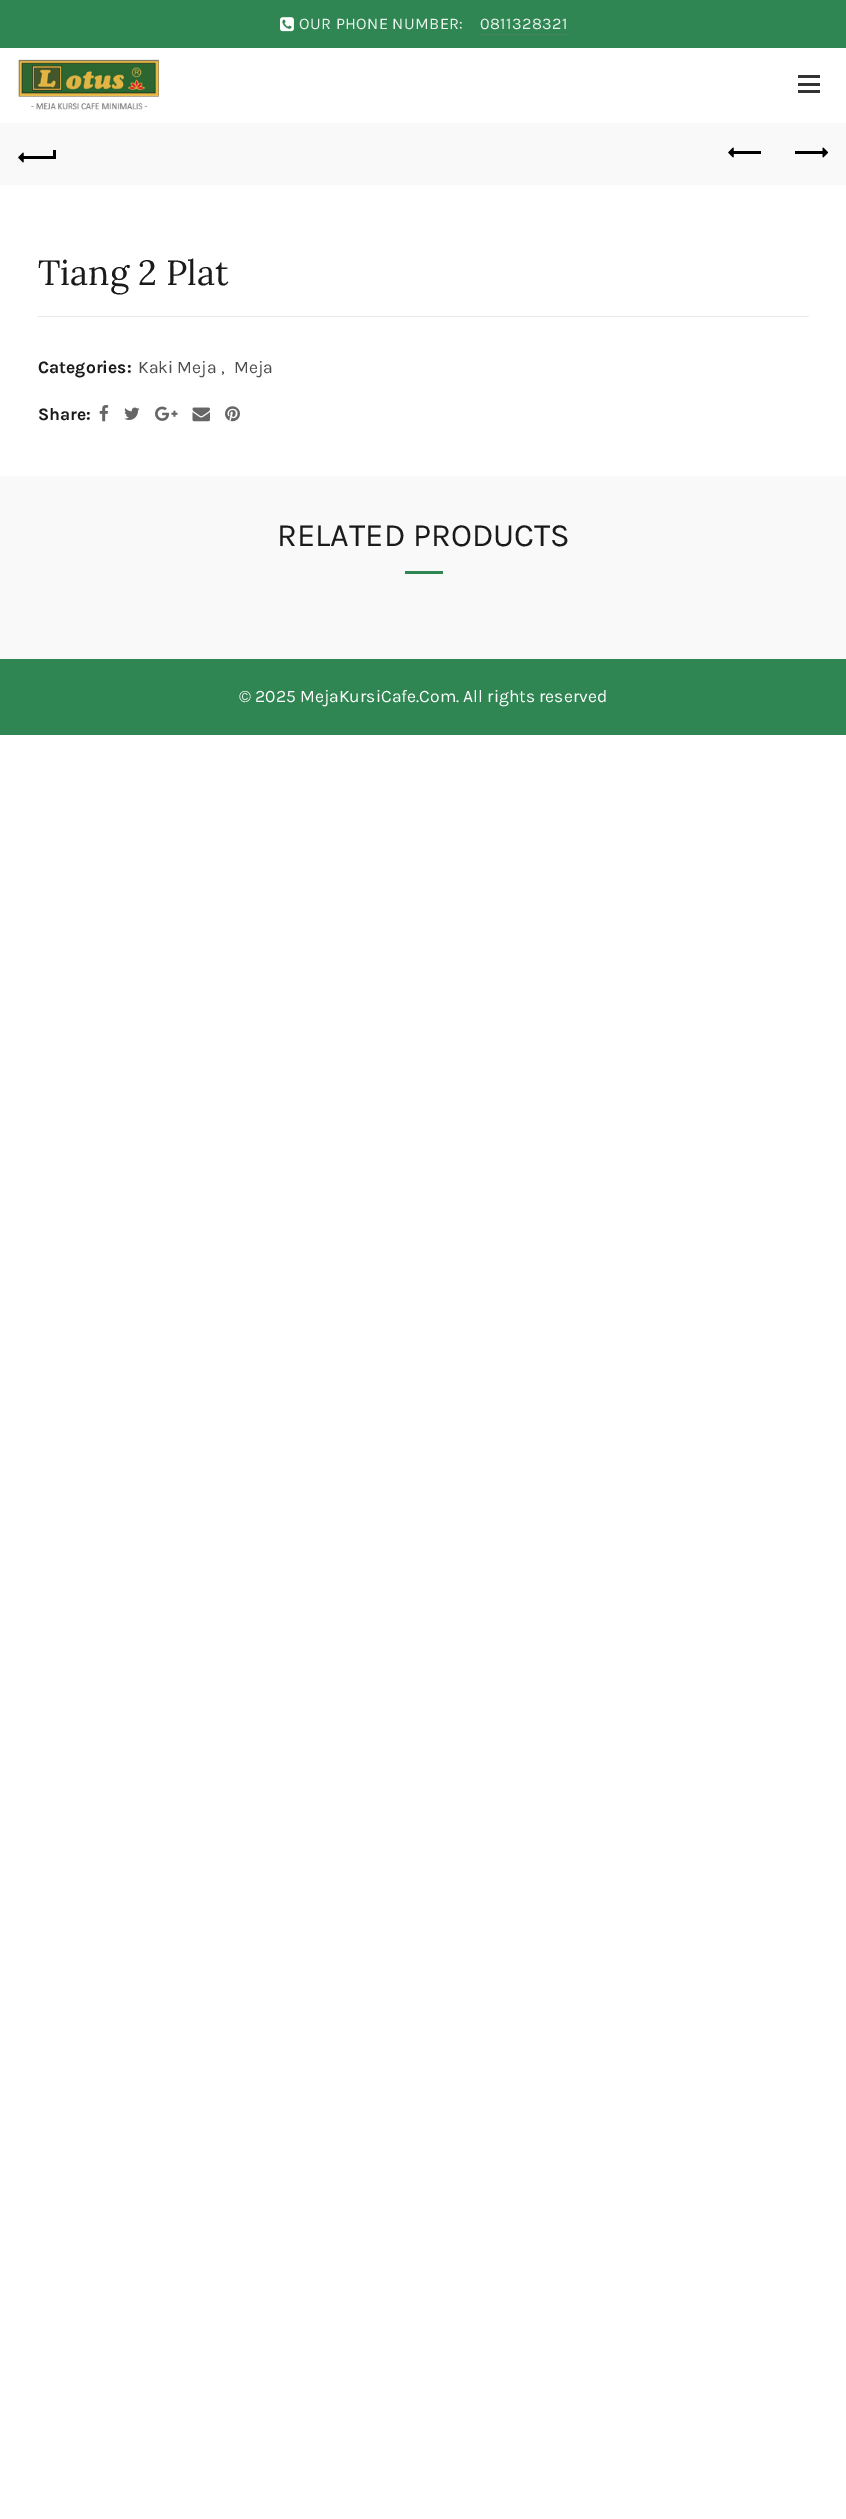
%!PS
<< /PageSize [846 2519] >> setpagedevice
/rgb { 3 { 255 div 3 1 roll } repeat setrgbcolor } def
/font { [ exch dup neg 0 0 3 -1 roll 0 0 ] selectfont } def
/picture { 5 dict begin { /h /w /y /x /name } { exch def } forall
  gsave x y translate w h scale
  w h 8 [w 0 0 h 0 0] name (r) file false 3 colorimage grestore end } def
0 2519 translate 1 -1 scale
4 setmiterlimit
255 255 255 rgb
0 0 846 2519 rectfill
47 134 83 rgb
0 0 846 48 rectfill
(img/1.rgb) 280 17 14 15 picture
70 131 96 rgb
480 34 88 1 rectfill
(img/2.rgb) 18 59 141 51 picture
[
  [798 83 22 3 51 51 51]
  [798 75 22 3 51 51 51]
  [798 90 22 3 51 51 51]
  [0 123 846 62 249 249 249]
  [23 156 31 3 0 0 0]
] { aload pop rgb rectfill } forall
(img/3.rgb) 18 152 6 11 picture
53 150 3 9 rectfill
733 151 28 3 rectfill
(img/3.rgb) 728 147 6 11 picture
795 151 29 3 rectfill
(img/4.rgb) 822 147 7 11 picture
232 232 232 rgb
38 316 771 1 rectfill
(img/5.rgb) 99 405 10 17 picture
(img/6.rgb) 124 407 16 13 picture
(img/7.rgb) 155 406 23 15 picture
(img/8.rgb) 192 407 18 15 picture
(img/9.rgb) 225 406 15 16 picture
[
  [0 476 846 183 249 249 249]
  [405 571 38 3 47 134 83]
  [0 659 846 76 47 134 83]
] { aload pop rgb rectfill } forall
/Karla-Regular 16.25 font
234 243 238 rgb
299 29 moveto 0.4 0 (OUR PHONE NUMBER:) ashow
480 29 moveto 0.4 0 (0811328321) ashow
/Lora-Regular 35 font
27 25 25 rgb
38 285 moveto (Tiang 2 Plat) show
/Karla-Bold 17.5 font
38 373 moveto (Categories:) show
/Karla-Regular 17.5 font
78 78 78 rgb
[
  [(Kaki Meja) 138 373]
  [(,) 221 373]
  [(Meja) 234 373]
] { aload pop moveto show } forall
/Karla-Bold 17.5 font
27 25 25 rgb
38 420 moveto (Share:) show
/Karla-Regular 32.5 font
277 546 moveto (RELATED PRODUCTS) show
/Karla-Regular 17.5 font
255 255 255 rgb
239 702 moveto (© 2025 MejaKursiCafe.Com. All rights reserved) show
showpage
